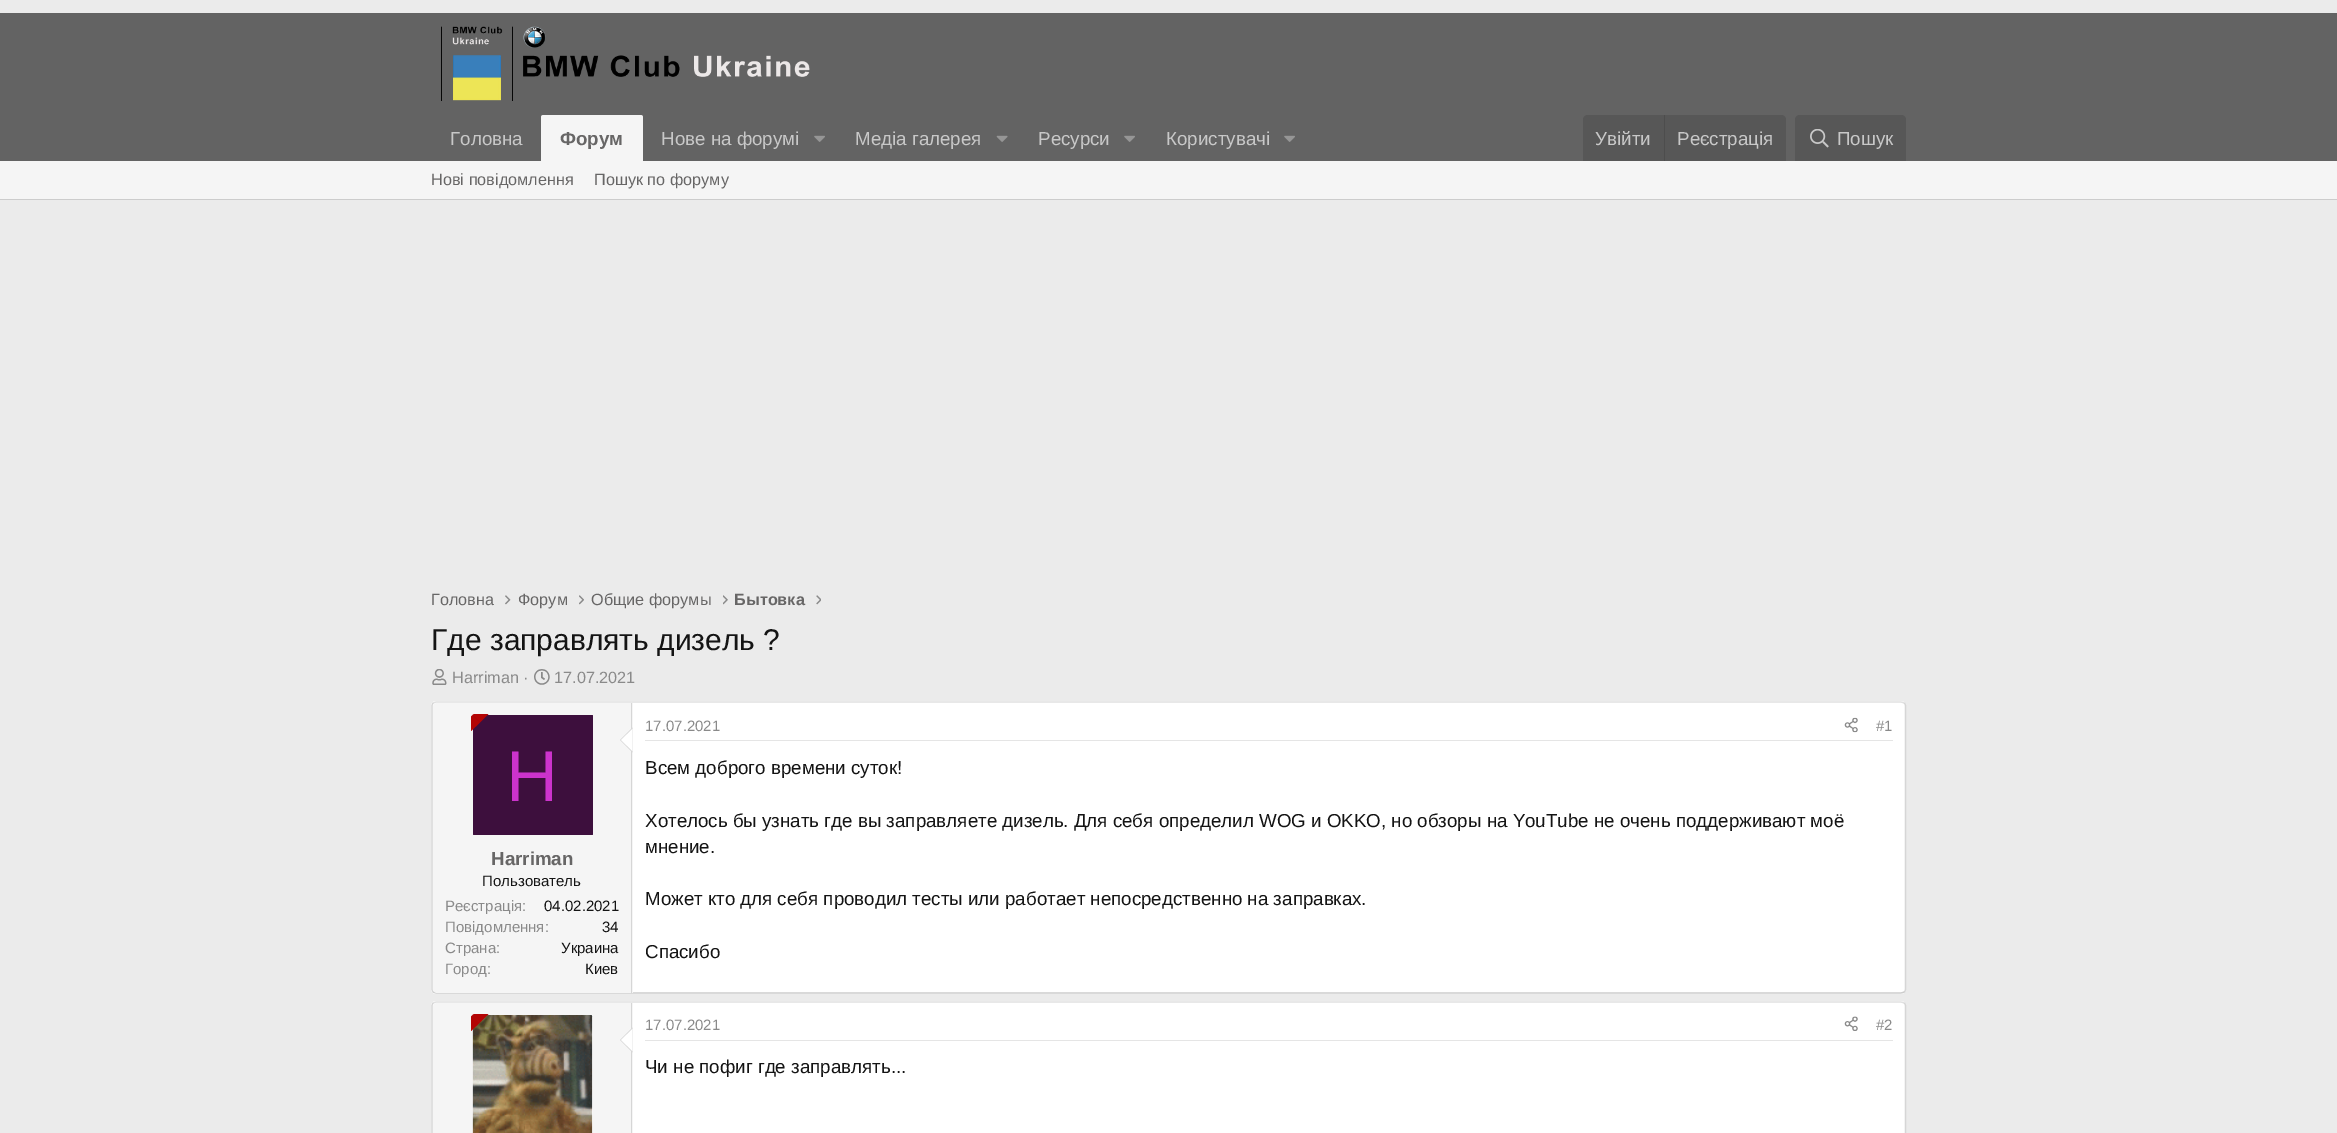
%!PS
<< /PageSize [2337 1133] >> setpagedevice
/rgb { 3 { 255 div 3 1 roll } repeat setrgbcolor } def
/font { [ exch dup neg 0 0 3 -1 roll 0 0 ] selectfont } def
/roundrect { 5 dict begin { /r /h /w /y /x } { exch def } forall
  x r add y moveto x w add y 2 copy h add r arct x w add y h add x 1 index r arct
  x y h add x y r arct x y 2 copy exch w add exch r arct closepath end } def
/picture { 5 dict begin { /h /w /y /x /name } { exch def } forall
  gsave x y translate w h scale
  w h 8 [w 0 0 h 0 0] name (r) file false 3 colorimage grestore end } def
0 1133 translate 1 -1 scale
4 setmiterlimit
235 235 235 rgb
0 0 2337 1133 rectfill
99 99 99 rgb
0 13 2337 148 rectfill
(img/1.rgb) 441 26 369 75 picture
245 245 245 rgb
543.5 115 moveto 640.5 115 lineto 642 115 643 116 643 117.5 curveto 643 161 lineto 541 161 lineto 541 117.5 lineto 541 116 542 115 543.5 115 curveto closepath fill
(img/2.rgb) 814 135 11 7 picture
(img/3.rgb) 996 135 12 7 picture
(img/2.rgb) 1124 135 11 7 picture
(img/2.rgb) 1284 135 11 7 picture
87 87 87 rgb
1588 115 moveto 1781 115 lineto 1784 115 1786 117 1786 120 curveto 1786 161 lineto 1583 161 lineto 1583 120 lineto 1583 117 1585 115 1588 115 curveto closepath fill
77 77 77 rgb
1664 115 1 46 rectfill
87 87 87 rgb
1800 115 moveto 1901 115 lineto 1904 115 1906 117 1906 120 curveto 1906 161 lineto 1795 161 lineto 1795 120 lineto 1795 117 1797 115 1800 115 curveto closepath fill
(img/4.rgb) 1810 129 19 19 picture
245 245 245 rgb
0 161 2337 38 rectfill
204 204 204 rgb
0 199 2337 1 rectfill
(img/5.rgb) 505 595 6 10 picture
(img/6.rgb) 579 595 5 10 picture
(img/7.rgb) 723 595 5 10 picture
(img/8.rgb) 816 595 5 10 picture
(img/9.rgb) 432 669 15 16 picture
(img/10.rgb) 534 669 16 16 picture
255 255 255 rgb
431 701 1475 293 5 roundrect fill
224 224 224 rgb
1.2 setlinewidth
433 703 moveto 436 702 lineto 1901 702 lineto 1904.5 703 lineto stroke
214 214 214 rgb
1904.5 703 moveto 1905 704 1905.5 705 1905.5 706 curveto 1905.5 989 lineto 1905.5 990 1905 991 1904.5 992 curveto stroke
204 204 204 rgb
1904.5 992 moveto 1901 993 lineto 436 993 lineto 433 992 lineto stroke
214 214 214 rgb
433 992 moveto 432.5 991 432 990 432 989 curveto 432 706 lineto 432 705 432.5 704 433 703 curveto stroke
245 245 245 rgb
437 703 moveto 633 703 lineto 633 993 lineto 437 993 lineto 435 993 433 991 433 989 curveto 433 707 lineto 433 705 435 703 437 703 curveto closepath fill
214 214 214 rgb
631 703 1 290 rectfill
632.5 727.5 moveto 632.5 752.5 lineto 620 740 lineto closepath fill
255 255 255 rgb
632.5 729 moveto 632.5 751 lineto 621 740 lineto closepath fill
61 15 61 rgb
473 715 120 120 1 roundrect fill
180 4 4 rgb
475 714 moveto 488.5 714 lineto 480 722.5 lineto 472.5 715 lineto 473 714.5 474 714 475 714 curveto closepath fill
480 722.5 moveto 471 731 lineto 471 716.5 lineto 472.5 715 lineto closepath fill
229 229 229 rgb
645 740 1248 1 rectfill
(img/11.rgb) 1844 717 14 16 picture
255 255 255 rgb
431 1001 1475 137 5 roundrect fill
224 224 224 rgb
433 1003 moveto 436 1002 lineto 1901 1002 lineto 1904.5 1003 lineto stroke
214 214 214 rgb
1904.5 1003 moveto 1905 1004 1905.5 1005 1905.5 1006 curveto 1905.5 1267.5 lineto 1905.5 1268.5 1905 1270 1904.5 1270.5 curveto stroke
433 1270.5 moveto 432.5 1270 432 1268.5 432 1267.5 curveto 432 1006 lineto 432 1005 432.5 1004 433 1003 curveto stroke
245 245 245 rgb
437 1003 moveto 633 1003 lineto 633 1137 lineto 437 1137 lineto 435 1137 433 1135 433 1133 curveto 433 1007 lineto 433 1005 435 1003 437 1003 curveto closepath fill
214 214 214 rgb
631 1003 1 130 rectfill
255 255 255 rgb
473 1015 120 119 1 roundrect fill
(img/12.rgb) 472 1015 121 118 picture
180 4 4 rgb
475 1014 moveto 488.5 1014 lineto 480 1022.5 lineto 472.5 1015 lineto 473 1014.5 474 1014 475 1014 curveto closepath fill
480 1022.5 moveto 471 1031 lineto 471 1016.5 lineto 472.5 1015 lineto closepath fill
214 214 214 rgb
632.5 1027.5 moveto 632.5 1052.5 lineto 620 1040 lineto closepath fill
255 255 255 rgb
632.5 1029 moveto 632.5 1051 lineto 621 1040 lineto closepath fill
229 229 229 rgb
645 1040 1248 1 rectfill
(img/13.rgb) 1844 1016 14 15 picture
/LiberationSans-Regular 18.75 font
200 200 200 rgb
450 145 moveto (Головна) show
/LiberationSans-Bold 18.75 font
103 102 102 rgb
560 145 moveto (Форум) show
/LiberationSans-Regular 18.75 font
200 200 200 rgb
[
  [(Нове на форумі) 661 145]
  [(Медіа галерея) 855 145]
  [(Ресурси) 1038 145]
  [(Користувачі) 1166 145]
  [(Увійти) 1595 145]
  [(Реєстрація) 1677 145]
  [(Пошук) 1837 145]
] { aload pop moveto show } forall
/LiberationSans-Regular 16.25 font
103 102 102 rgb
[
  [(Нові повідомлення) 431 185]
  [(Пошук по форуму) 594 185]
  [(Головна) 431 605]
  [(Форум) 518 605]
  [(Общие форумы) 591 605]
] { aload pop moveto show } forall
/LiberationSans-Bold 16.25 font
734 605 moveto (Бытовка) show
/LiberationSans-Regular 30 font
20 20 20 rgb
431 650 moveto (Где заправлять дизель ?) show
/LiberationSans-Regular 16.25 font
138 138 138 rgb
452 683 moveto (Harriman ·) show
554 683 moveto (17.07.2021) show
/LiberationSans-Regular 72 font
204 51 204 rgb
506 801 moveto (H) show
/LiberationSans-Bold 18.75 font
103 102 102 rgb
491 865 moveto (Harriman) show
/LiberationSans-Regular 15 font
20 20 20 rgb
482 886 moveto (Пользователь) show
138 138 138 rgb
445 911 moveto (Реєстрація:) show
20 20 20 rgb
544 911 moveto (04.02.2021) show
138 138 138 rgb
445 932 moveto (Повідомлення:) show
20 20 20 rgb
602 932 moveto (34) show
138 138 138 rgb
445 953 moveto (Страна:) show
20 20 20 rgb
561 953 moveto (Украина) show
138 138 138 rgb
445 974 moveto (Город:) show
20 20 20 rgb
585 974 moveto (Киев) show
138 138 138 rgb
645 731 moveto (17.07.2021) show
1876 731 moveto (#1) show
/LiberationSans-Regular 18.75 font
20 20 20 rgb
[
  [(Всем доброго времени суток!) 645 774]
  [(Хотелось бы узнать где вы заправляете дизель. Для себя определил WOG и OKKO, но обзоры на YouTube не очень поддерживают моё) 645 827]
  [(мнение.) 645 853]
  [(Может кто для себя проводил тесты или работает непосредственно на заправках.) 645 905]
  [(Спасибо) 645 958]
] { aload pop moveto show } forall
/LiberationSans-Regular 15 font
138 138 138 rgb
645 1030 moveto (17.07.2021) show
1876 1030 moveto (#2) show
/LiberationSans-Regular 18.75 font
20 20 20 rgb
645 1073 moveto (Чи не пофиг где заправлять...) show
showpage
